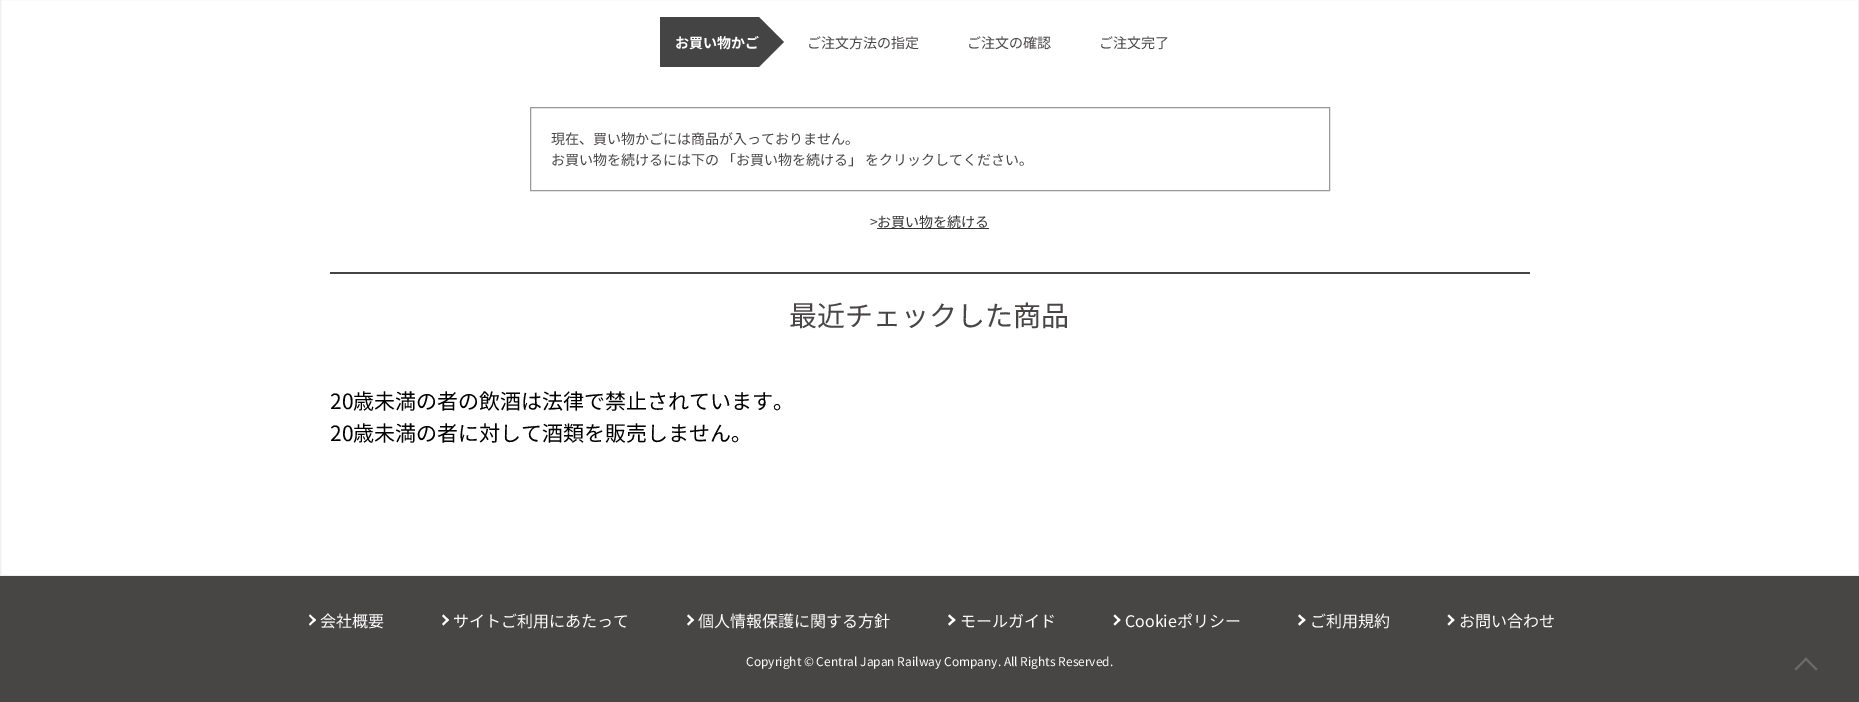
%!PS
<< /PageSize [1859 702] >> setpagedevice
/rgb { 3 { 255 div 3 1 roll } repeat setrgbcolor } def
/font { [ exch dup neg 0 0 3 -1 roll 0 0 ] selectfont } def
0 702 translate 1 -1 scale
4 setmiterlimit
255 255 255 rgb
0 0 1859 702 rectfill
238 238 238 rgb
0.5 -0.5 1858 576 rectstroke
68 68 68 rgb
660 17 99 50 rectfill
759 67 moveto 759 17 lineto 784 42 lineto closepath fill
153 153 153 rgb
530.5 107.5 799 83 rectstroke
[
  [877 228 112 1 51 51 51]
  [330 272 1200 2 68 68 68]
  [0 576 1859 126 72 69 69]
] { aload pop rgb rectfill } forall
255 255 255 rgb
310 614.5 moveto 316 620 lineto 314.5 621.5 lineto 309 616 lineto closepath fill
314.5 618.5 moveto 316 620 lineto 310 625.5 lineto 309 624 lineto closepath fill
443.5 614.5 moveto 449 620 lineto 447.5 621.5 lineto 442 616 lineto closepath fill
447.5 618.5 moveto 449 620 lineto 443.5 625.5 lineto 442 624 lineto closepath fill
688.5 614.5 moveto 694 620 lineto 692.5 621.5 lineto 687 616 lineto closepath fill
692.5 618.5 moveto 694 620 lineto 688.5 625.5 lineto 687 624 lineto closepath fill
949.5 614.5 moveto 955.5 620 lineto 954 621.5 lineto 948 616 lineto closepath fill
954 618.5 moveto 955.5 620 lineto 949.5 625.5 lineto 948 624 lineto closepath fill
1115 614.5 moveto 1120.5 620 lineto 1119 621.5 lineto 1113.5 616 lineto closepath fill
1119 618.5 moveto 1120.5 620 lineto 1115 625.5 lineto 1113.5 624 lineto closepath fill
1299.5 614.5 moveto 1305.5 620 lineto 1304 621.5 lineto 1298 616 lineto closepath fill
1304 618.5 moveto 1305.5 620 lineto 1299.5 625.5 lineto 1298 624 lineto closepath fill
1449 614.5 moveto 1454.5 620 lineto 1453 621.5 lineto 1447.5 616 lineto closepath fill
1453 618.5 moveto 1454.5 620 lineto 1449 625.5 lineto 1447.5 624 lineto closepath fill
109 106 106 rgb
1794.5 669 moveto 1806 657.5 lineto 1807.5 659 lineto 1796 670.5 lineto closepath fill
1804.5 659 moveto 1806 657.5 lineto 1817.5 669 lineto 1816 670.5 lineto closepath fill
/NotoSansJP-Bold 14 font
255 255 255 rgb
675 48 moveto (お買い物かご) show
/NotoSansJP-Regular 14 font
72 69 69 rgb
[
  [(ご注文方法の指定) 807 48]
  [(ご注文の確認) 967 48]
  [(ご注文完了) 1099 48]
  [(現在、買い物かごには商品が入っておりません。) 551 144]
  [(お買い物を続けるには下の 「お買い物を続ける」 をクリックしてください。) 551 165]
  [(>) 870 227]
] { aload pop moveto show } forall
51 51 51 rgb
877 227 moveto (お買い物を続ける) show
/NotoSansJP-Regular 28 font
72 69 69 rgb
789 326 moveto (最近チェックした商品) show
/NotoSansJP-Regular 21 font
0 0 0 rgb
330 409 moveto (20歳未満の者の飲酒は法律で禁止されています。) show
330 441 moveto (20歳未満の者に対して酒類を販売しません。) show
/NotoSansJP-Regular 16 font
255 255 255 rgb
[
  [(会社概要) 320 627]
  [(サイトご利用にあたって) 453 627]
  [(個人情報保護に関する方針) 698 627]
  [(モールガイド) 960 627]
  [(Cookieポリシー) 1125 627]
  [(ご利用規約) 1310 627]
  [(お問い合わせ) 1459 627]
] { aload pop moveto show } forall
/NotoSansJP-Regular 12 font
746 666 moveto (Copyright © Central Japan Railway Company. All Rights Reserved.) show
showpage
